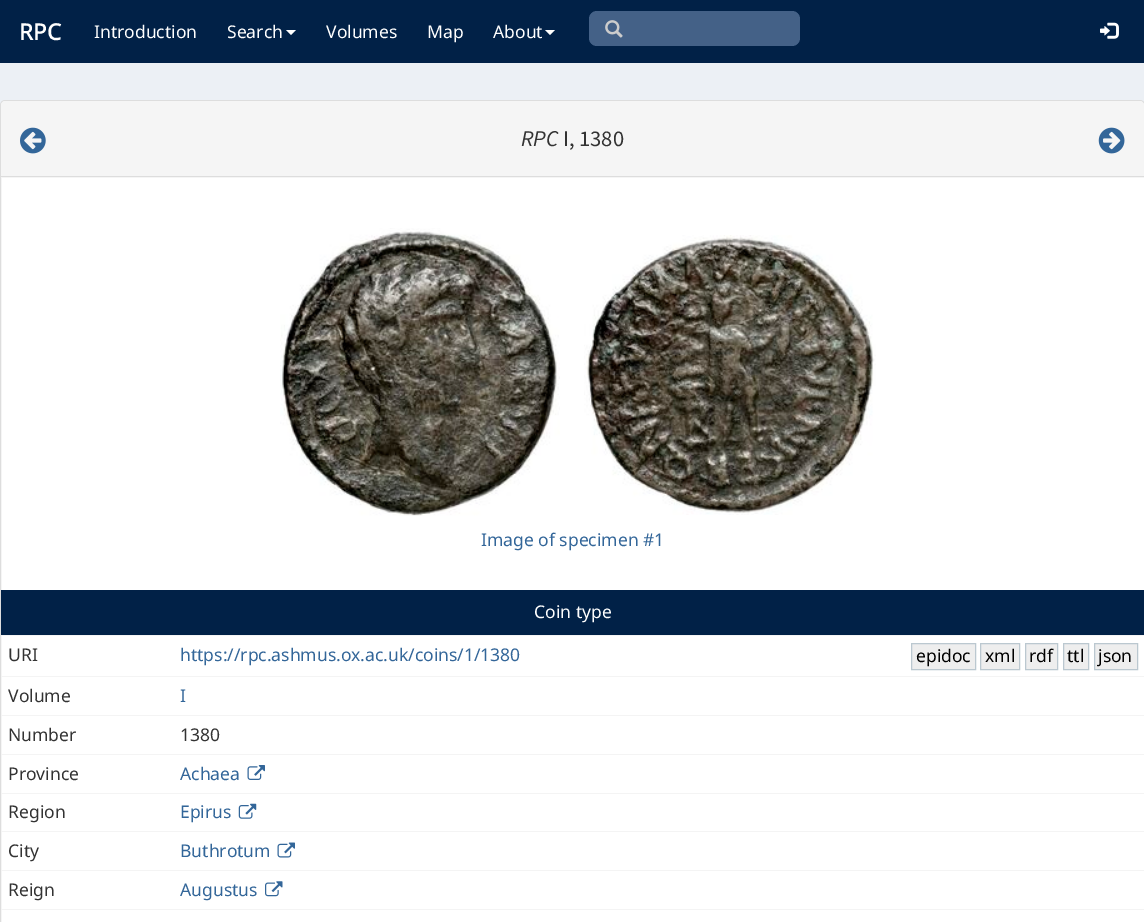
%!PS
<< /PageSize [1144 922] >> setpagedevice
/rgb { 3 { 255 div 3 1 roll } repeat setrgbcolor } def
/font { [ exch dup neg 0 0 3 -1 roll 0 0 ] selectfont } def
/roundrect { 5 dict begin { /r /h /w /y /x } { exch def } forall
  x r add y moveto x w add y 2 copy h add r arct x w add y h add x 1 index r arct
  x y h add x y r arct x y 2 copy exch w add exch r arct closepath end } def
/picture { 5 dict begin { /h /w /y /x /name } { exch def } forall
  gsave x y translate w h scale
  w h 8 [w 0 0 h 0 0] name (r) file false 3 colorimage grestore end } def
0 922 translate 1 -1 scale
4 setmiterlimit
236 240 245 rgb
0 0 1144 922 rectfill
1 33 71 rgb
0 0 1144 63 rectfill
255 255 255 rgb
286 30 moveto 296 30 lineto 291 35 lineto closepath fill
545 30 moveto 555 30 lineto 550 35 lineto closepath fill
68 97 135 rgb
589 11 211 35 8 roundrect fill
(img/1.rgb) 605 20 18 18 picture
(img/2.rgb) 1100 22 19 17 picture
255 255 255 rgb
0.5 100.5 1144 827 4.5 roundrect gsave fill grestore
221 221 221 rgb
stroke
245 245 245 rgb
5 101 moveto 1140 101 lineto 1142 101 1144 103 1144 105 curveto 1144 178 lineto 1 178 lineto 1 105 lineto 1 103 3 101 5 101 curveto closepath fill
221 221 221 rgb
1 176 1143 1 rectfill
(img/3.rgb) 20 127 26 27 picture
(img/4.rgb) 1098 127 27 27 picture
(img/5.rgb) 280 228 280 288 picture
(img/6.rgb) 584 235 292 280 picture
1 33 71 rgb
1 590 1143 45 rectfill
244 244 244 rgb
1 635 1143 1 rectfill
238 238 238 rgb
911.5 643.5 moveto 975.5 643.5 lineto 975.5 669.5 lineto 911.5 669.5 lineto closepath gsave fill grestore
187 200 208 rgb
stroke
238 238 238 rgb
980.5 643.5 moveto 1019.5 643.5 lineto 1019.5 669.5 lineto 980.5 669.5 lineto closepath gsave fill grestore
187 200 208 rgb
stroke
238 238 238 rgb
1025.5 643.5 moveto 1057.5 643.5 lineto 1057.5 669.5 lineto 1025.5 669.5 lineto closepath gsave fill grestore
187 200 208 rgb
stroke
238 238 238 rgb
1063.5 643.5 moveto 1088.5 643.5 lineto 1088.5 669.5 lineto 1063.5 669.5 lineto closepath gsave fill grestore
187 200 208 rgb
stroke
238 238 238 rgb
1094.5 643.5 moveto 1137.5 643.5 lineto 1137.5 669.5 lineto 1094.5 669.5 lineto closepath gsave fill grestore
187 200 208 rgb
stroke
[
  [1 676 1143 1 244 244 244]
  [1 715 1143 1 244 244 244]
  [1 754 1143 1 244 244 244]
] { aload pop rgb rectfill } forall
(img/7.rgb) 247 765 18 15 picture
1 793 1143 1 rectfill
(img/8.rgb) 238 803 19 16 picture
1 831 1143 1 rectfill
(img/9.rgb) 277 842 18 16 picture
1 870 1143 1 rectfill
(img/10.rgb) 265 881 18 16 picture
1 909 1143 1 rectfill
/NotoSans-Bold 22.5 font
255 255 255 rgb
19 40 moveto (RPC) show
/NotoSans-Regular 17.5 font
[
  [(Introduction) 94 38]
  [(Search) 227 38]
  [(Volumes) 326 38]
  [(Map) 427 38]
  [(About) 493 38]
] { aload pop moveto show } forall
/SourceSansPro-Italic 22.5 font
51 51 51 rgb
521 146 moveto (RPC) show
/SourceSansPro-Regular 22.5 font
563 146 moveto (I, 1380) show
/NotoSans-Regular 17.5 font
51 102 153 rgb
481 546 moveto (Image of specimen #1) show
255 255 255 rgb
534 618 moveto (Coin type) show
51 51 51 rgb
8 661 moveto (URI) show
51 102 153 rgb
180 661 moveto (https://rpc.ashmus.ox.ac.uk/coins/1/1380) show
0 0 0 rgb
[
  [(epidoc) 916 662]
  [(xml) 985 662]
  [(rdf) 1029 662]
  [(ttl) 1067 662]
  [(json) 1098 662]
] { aload pop moveto show } forall
51 51 51 rgb
8 702 moveto (Volume) show
51 102 153 rgb
180 702 moveto (I) show
51 51 51 rgb
[
  [(Number) 8 741]
  [(1380) 180 741]
  [(Province) 8 780]
] { aload pop moveto show } forall
51 102 153 rgb
180 780 moveto (Achaea) show
51 51 51 rgb
8 818 moveto (Region) show
51 102 153 rgb
180 818 moveto (Epirus) show
51 51 51 rgb
8 857 moveto (City) show
51 102 153 rgb
180 857 moveto (Buthrotum) show
51 51 51 rgb
8 896 moveto (Reign) show
51 102 153 rgb
180 896 moveto (Augustus) show
showpage
